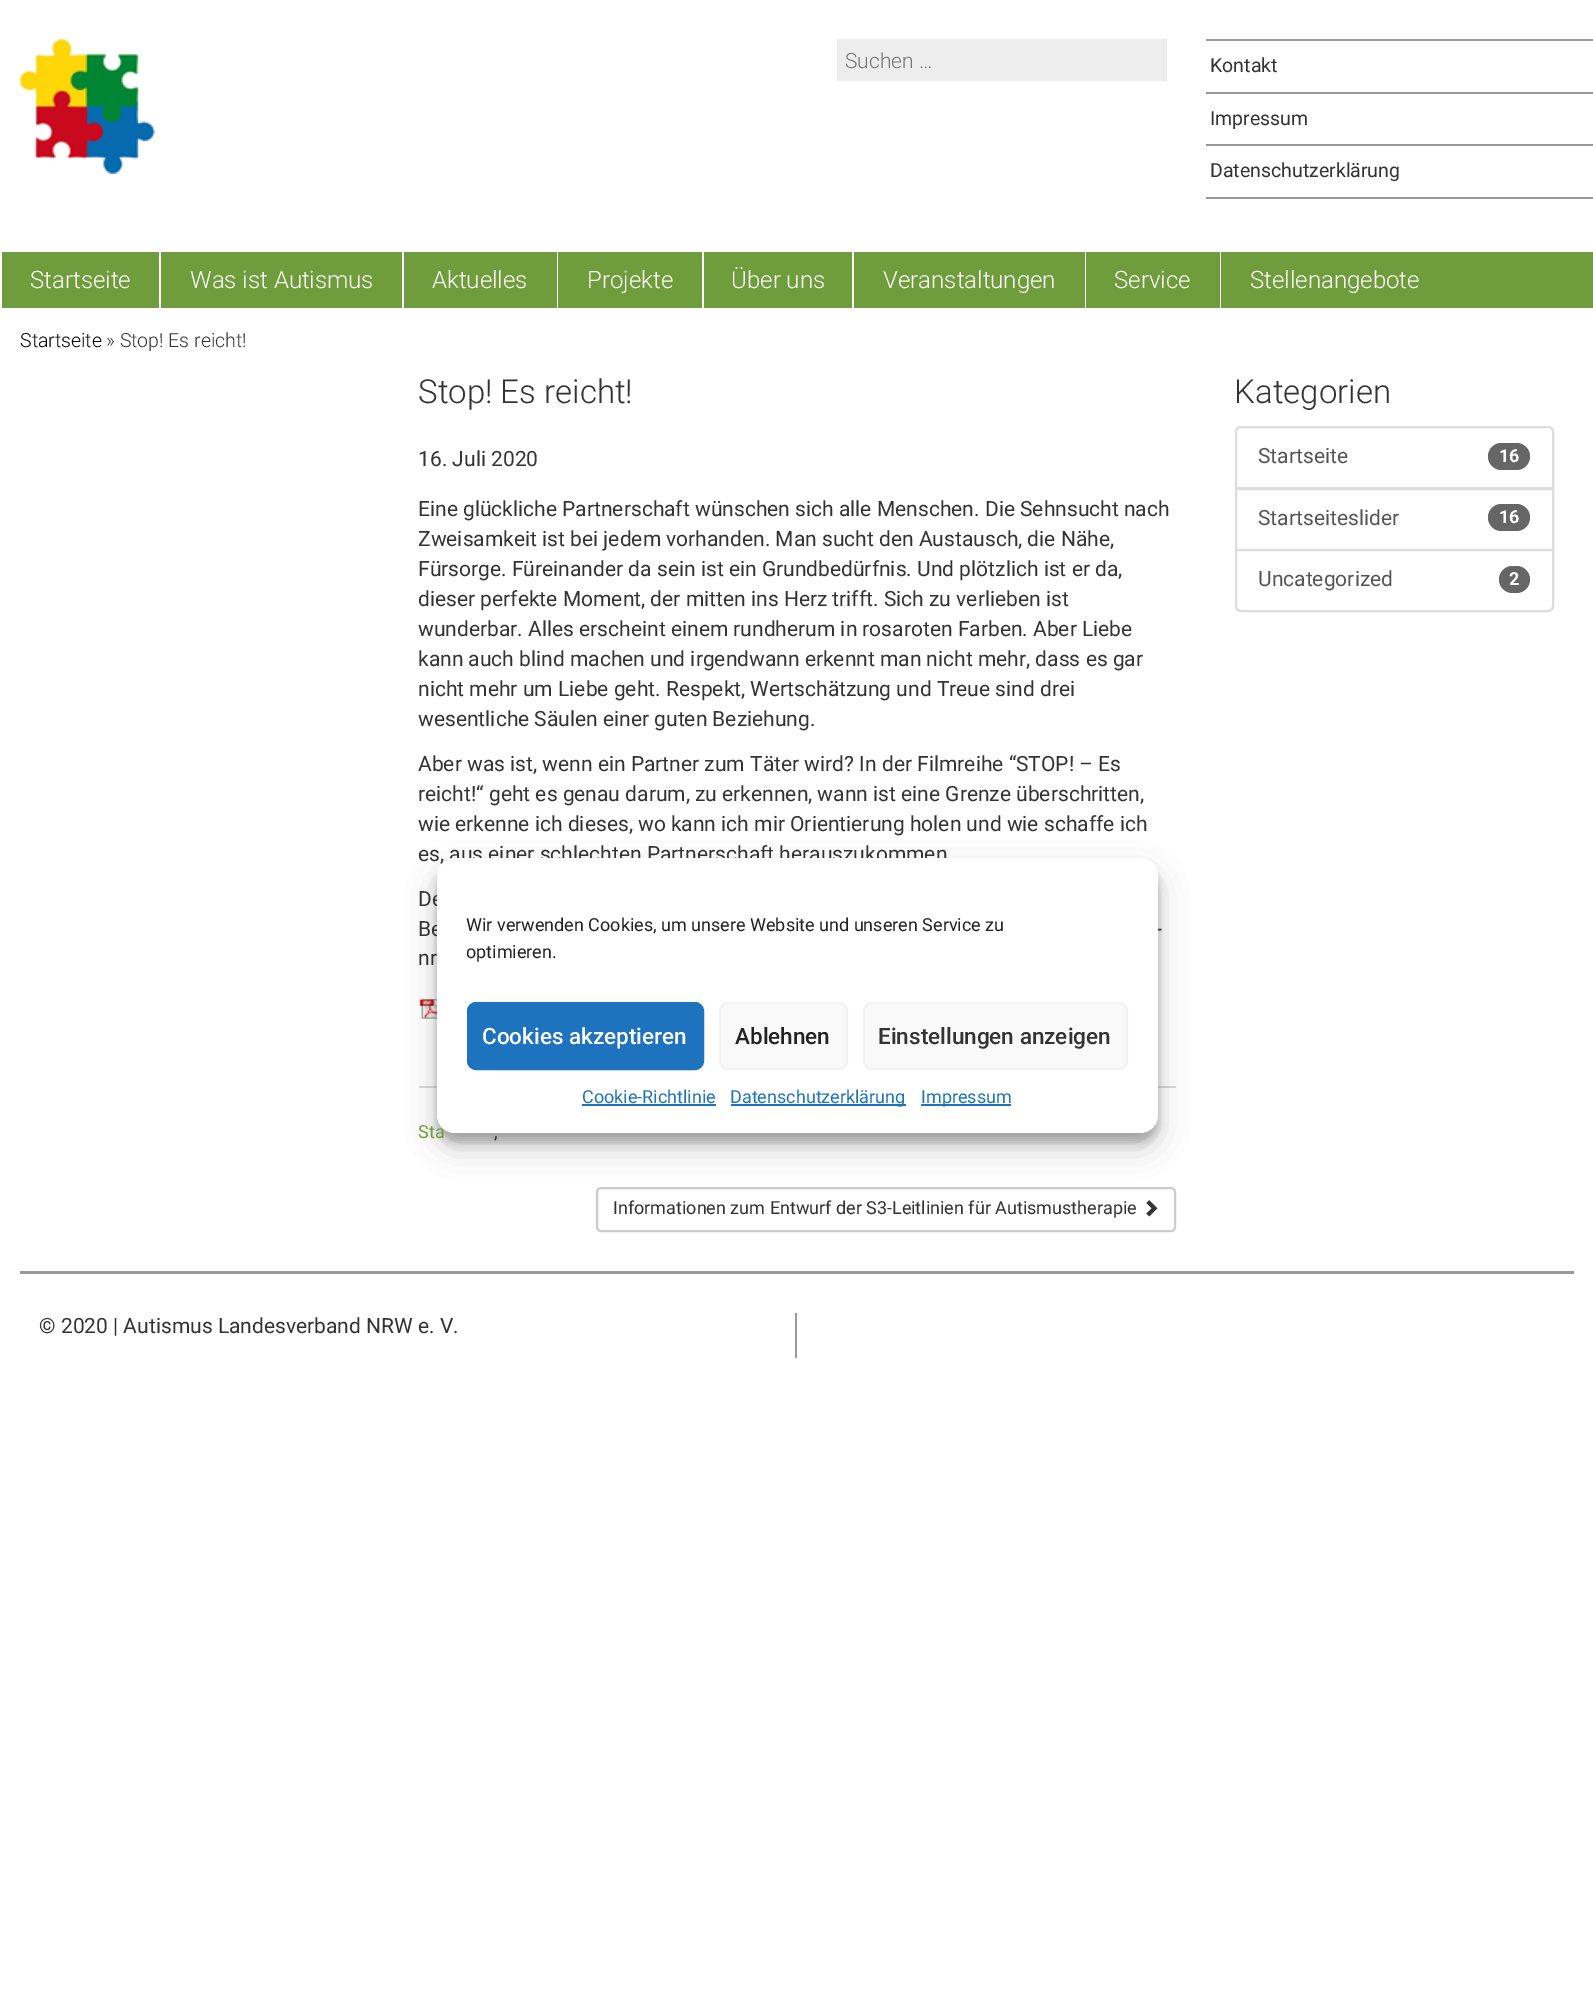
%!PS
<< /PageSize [1593 1992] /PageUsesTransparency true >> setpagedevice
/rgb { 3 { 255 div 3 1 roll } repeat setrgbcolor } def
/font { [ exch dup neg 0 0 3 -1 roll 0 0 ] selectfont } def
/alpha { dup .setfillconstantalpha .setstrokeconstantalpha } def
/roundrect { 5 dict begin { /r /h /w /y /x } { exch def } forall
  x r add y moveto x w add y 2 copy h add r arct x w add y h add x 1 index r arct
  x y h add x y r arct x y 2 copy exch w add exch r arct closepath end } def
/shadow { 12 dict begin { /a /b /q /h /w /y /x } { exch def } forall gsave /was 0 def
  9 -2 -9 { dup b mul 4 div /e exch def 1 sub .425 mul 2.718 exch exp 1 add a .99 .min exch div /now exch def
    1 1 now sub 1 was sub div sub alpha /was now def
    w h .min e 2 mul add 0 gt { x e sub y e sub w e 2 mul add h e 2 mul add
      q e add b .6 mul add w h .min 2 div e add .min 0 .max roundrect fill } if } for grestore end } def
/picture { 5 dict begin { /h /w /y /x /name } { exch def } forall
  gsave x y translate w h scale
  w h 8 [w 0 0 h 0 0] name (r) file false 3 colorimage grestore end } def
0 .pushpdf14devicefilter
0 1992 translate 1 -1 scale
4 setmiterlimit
255 255 255 rgb
0 0 1593 1992 rectfill
(img/1.rgb) 19 39 136 135 picture
[
  [837 39 330 42 237 237 238]
  [1206 39 387 2 153 153 153]
  [1206 92 387 2 153 153 153]
  [1206 144 387 2 153 153 153]
  [1206 197 387 2 153 153 153]
  [2 252 1591 56 112 157 60]
  [159 252 2 56 255 255 255]
  [402 252 2 56 255 255 255]
  [557 252 1 56 255 255 255]
  [702 252 2 56 255 255 255]
  [852 252 2 56 255 255 255]
  [1085 252 1 56 255 255 255]
  [1220 252 1 56 255 255 255]
] { aload pop rgb rectfill } forall
(img/2.rgb) 419 999 18 20 picture
217 218 219 rgb
419 1086 757 2 rectfill
204 204 204 rgb
2 setlinewidth
597 1188 578 43 4 roundrect stroke
(img/3.rgb) 1146 1200 12 17 picture
221 221 221 rgb
1241 427 moveto 1548 427 lineto 1551 427 1553 429 1553 432 curveto 1553 488 lineto 1236 488 lineto 1236 432 lineto 1236 429 1238 427 1241 427 curveto closepath stroke
102 102 102 rgb
1488 443 42 27 13.5 roundrect fill
221 221 221 rgb
1236 489 317 61 rectstroke
102 102 102 rgb
1488 504 42 27 13.5 roundrect fill
255 255 255 rgb
1236 550 moveto 1553 550 lineto 1553 606 lineto 1553 609 1551 611 1548 611 curveto 1241 611 lineto 1238 611 1236 609 1236 606 curveto closepath gsave fill grestore
221 221 221 rgb
stroke
102 102 102 rgb
1499 566 31 27 13.5 roundrect fill
153 153 153 rgb
20 1271 1554 3 rectfill
795 1313 2 45 rectfill
0 0 0 rgb
437 867 721 275 18 4.5 0.23 shadow
437 873 721 275 18 15 0.19 shadow
/Roboto-Light 21 font
117 117 117 rgb
845 68 moveto (Suchen …) show
/Roboto-Regular 19.5 font
51 51 51 rgb
[
  [(Kontakt) 1210 72]
  [(Impressum) 1210 125]
  [(Datenschutzerklärung) 1210 177]
] { aload pop moveto show } forall
/Roboto-Light 24 font
255 255 255 rgb
[
  [(Startseite) 30 288]
  [(Was ist Autismus) 190 288]
  [(Aktuelles) 432 288]
  [(Projekte) 587 288]
  [(Über uns) 731 288]
  [(Veranstaltungen) 883 288]
  [(Service) 1114 288]
  [(Stellenangebote) 1250 288]
] { aload pop moveto show } forall
/Roboto-Light 19.5 font
0 0 0 rgb
20 347 moveto (Startseite) show
51 51 51 rgb
106 347 moveto (» Stop! Es reicht!) show
/Roboto-Light 33 font
418 403 moveto (Stop! Es reicht!) show
/Roboto-Regular 21 font
[
  [(16. Juli 2020) 418 466]
  [(Eine glückliche Partnerschaft wünschen sich alle Menschen. Die Sehnsucht nach) 418 516]
  [(Zweisamkeit ist bei jedem vorhanden. Man sucht den Austausch, die Nähe,) 418 546]
  [(Fürsorge. Füreinander da sein ist ein Grundbedürfnis. Und plötzlich ist er da,) 418 576]
  [(dieser perfekte Moment, der mitten ins Herz trifft. Sich zu verlieben ist) 418 606]
  [(wunderbar. Alles erscheint einem rundherum in rosaroten Farben. Aber Liebe) 418 636]
  [(kann auch blind machen und irgendwann erkennt man nicht mehr, dass es gar) 418 666]
  [(nicht mehr um Liebe geht. Respekt, Wertschätzung und Treue sind drei) 418 696]
  [(wesentliche Säulen einer guten Beziehung.) 418 726]
  [(Aber was ist, wenn ein Partner zum Täter wird? In der Filmreihe “STOP! – Es) 418 771]
  [(reicht!“ geht es genau darum, zu erkennen, wann ist eine Grenze überschritten,) 418 801]
  [(wie erkenne ich dieses, wo kann ich mir Orientierung holen und wie schaffe ich) 418 831]
  [(es, aus einer schlechten Partnerschaft herauszukommen) 418 861]
  [(De) 418 906]
  [(Be) 418 936]
  [(-) 1156 936]
  [(nr) 418 965]
] { aload pop moveto show } forall
/Roboto-Regular 18 font
112 157 60 rgb
418 1138 moveto (Sta) show
51 51 51 rgb
494 1138 moveto (,) show
613 1214 moveto (Informationen zum Entwurf der S3-Leitlinien für Autismustherapie) show
/Roboto-Light 33 font
1234 403 moveto (Kategorien) show
/Roboto-Regular 21 font
85 85 85 rgb
1258 463 moveto (Startseite) show
/Roboto-Bold 18 font
255 255 255 rgb
1499 462 moveto (16) show
/Roboto-Regular 21 font
85 85 85 rgb
1258 525 moveto (Startseiteslider) show
/Roboto-Bold 18 font
255 255 255 rgb
1499 523 moveto (16) show
/Roboto-Regular 21 font
85 85 85 rgb
1258 586 moveto (Uncategorized) show
/Roboto-Bold 18 font
255 255 255 rgb
1509 585 moveto (2) show
/Roboto-Regular 21 font
51 51 51 rgb
39 1333 moveto (© 2020 | Autismus Landesverband NRW e. V.) show
255 255 255 rgb
437 858 721 275 18 roundrect fill
/Roboto-Regular 18 font
34 34 34 rgb
466 931 moveto (Wir verwenden Cookies, um unsere Website und unseren Service zu) show
gsave
467 911 661 61 rectclip
466 958 moveto (optimieren.) show
grestore
30 115 190 rgb
468 1003 235 66 8 roundrect gsave fill grestore
stroke
/Roboto-Medium 22.5 font
255 255 255 rgb
482 1044 moveto (Cookies akzeptieren) show
249 249 249 rgb
720 1003 127 66 8 roundrect gsave fill grestore
242 242 242 rgb
stroke
34 34 34 rgb
735 1044 moveto (Ablehnen) show
249 249 249 rgb
864 1003 263 66 8 roundrect gsave fill grestore
242 242 242 rgb
stroke
51 51 51 rgb
878 1044 moveto (Einstellungen anzeigen) show
/Roboto-Regular 18 font
30 115 190 rgb
582 1103 moveto (Cookie-Richtlinie) show
582 1104 134 2 rectfill
731 1104 175 2 rectfill
730 1103 moveto (Datenschutzerklärung) show
921 1104 90 2 rectfill
921 1103 moveto (Impressum) show
.poppdf14devicefilter showpage
